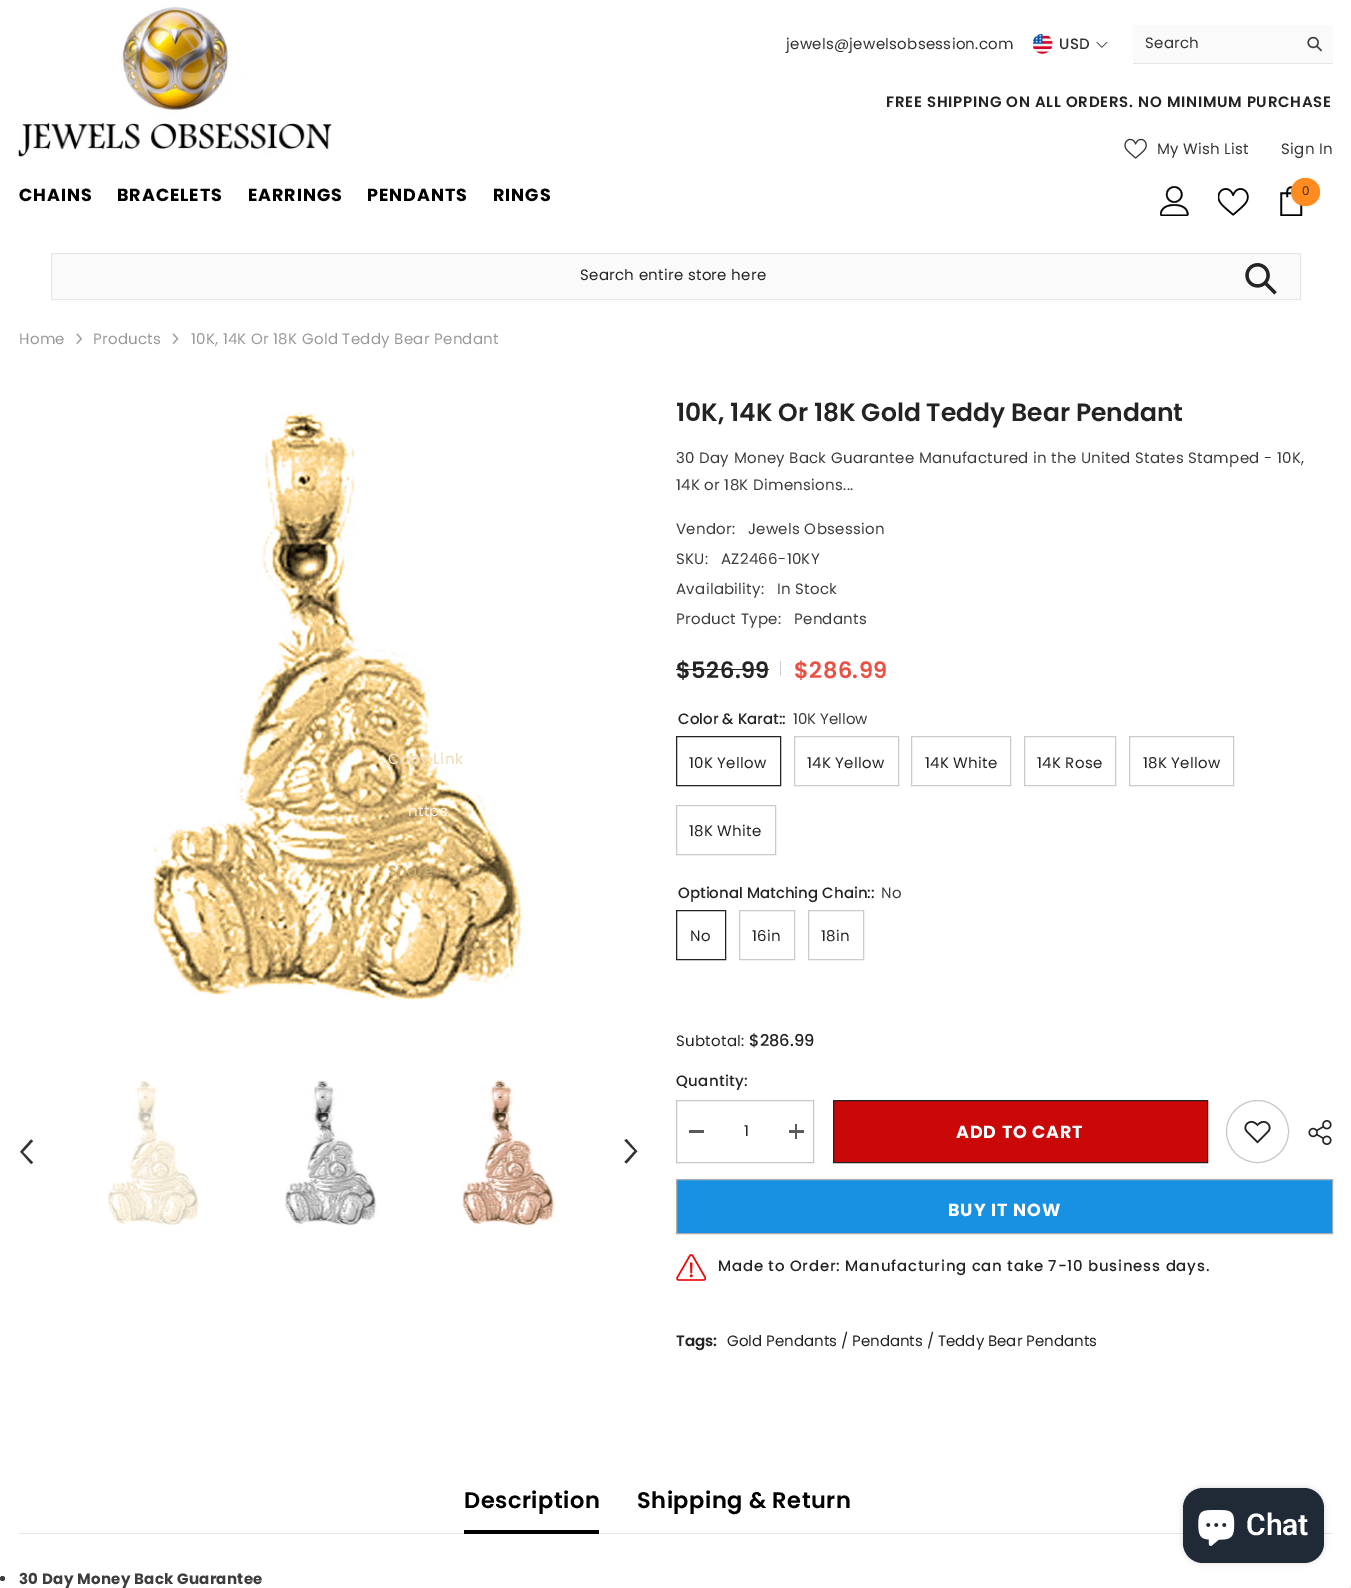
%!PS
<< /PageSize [1351 1588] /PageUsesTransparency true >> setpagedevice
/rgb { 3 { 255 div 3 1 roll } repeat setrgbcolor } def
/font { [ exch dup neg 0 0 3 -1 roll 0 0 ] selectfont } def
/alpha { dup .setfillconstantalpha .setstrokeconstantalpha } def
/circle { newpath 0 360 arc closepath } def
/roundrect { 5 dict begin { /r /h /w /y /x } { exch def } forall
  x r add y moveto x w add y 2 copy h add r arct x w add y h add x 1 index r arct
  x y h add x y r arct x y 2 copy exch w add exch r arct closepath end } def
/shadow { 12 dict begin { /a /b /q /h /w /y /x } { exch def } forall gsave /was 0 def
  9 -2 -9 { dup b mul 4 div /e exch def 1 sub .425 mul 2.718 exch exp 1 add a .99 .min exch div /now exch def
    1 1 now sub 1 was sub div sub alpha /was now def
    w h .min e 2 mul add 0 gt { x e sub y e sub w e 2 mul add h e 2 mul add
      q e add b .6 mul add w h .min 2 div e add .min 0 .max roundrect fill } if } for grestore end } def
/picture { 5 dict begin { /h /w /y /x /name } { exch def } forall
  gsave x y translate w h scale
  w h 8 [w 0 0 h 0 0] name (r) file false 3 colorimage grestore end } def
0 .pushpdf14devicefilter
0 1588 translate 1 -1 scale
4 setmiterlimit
255 255 255 rgb
0 0 1351 1588 rectfill
(img/1.rgb) 18 6 314 151 picture
(img/2.rgb) 1033 34 20 20 picture
(img/3.rgb) 1096 42 12 6 picture
250 250 250 rgb
1133 25 200 38 rectfill
231 231 231 rgb
1133 63 200 1 rectfill
(img/4.rgb) 1307 36 15 16 picture
(img/5.rgb) 1124 138 23 21 picture
(img/6.rgb) 1160 186 29 30 picture
(img/7.rgb) 1218 188 31 28 picture
(img/8.rgb) 1280 186 23 30 picture
255 139 33 rgb
1291 178 29 28 14 roundrect fill
250 250 250 rgb
51.5 253.5 moveto 1300.5 253.5 lineto 1300.5 299.5 lineto 51.5 299.5 lineto closepath gsave fill grestore
231 231 231 rgb
stroke
(img/9.rgb) 1245 263 32 32 picture
(img/10.rgb) 76 333 7 11 picture
(img/11.rgb) 172 333 7 11 picture
(img/12.rgb) 152 412 373 588 picture
50 50 50 rgb
31 1164 moveto 33 1162.5 lineto 23 1152 lineto 33 1141 lineto 31 1139.5 lineto 20 1152 lineto 21 1152.5 lineto closepath fill
(img/13.rgb) 107 1080 92 145 picture
(img/14.rgb) 285 1080 92 146 picture
(img/15.rgb) 461 1080 96 146 picture
626.5 1139 moveto 624.5 1140.5 lineto 634.5 1151 lineto 624.5 1162 lineto 626.5 1163.5 lineto 637.5 1151 lineto 636.5 1150.5 lineto closepath fill
35 35 35 rgb
676 669 93 1 rectfill
203 205 214 rgb
780 661 1 15 rectfill
35 35 35 rgb
676.5 736.5 104 49 rectstroke
203 203 203 rgb
794.5 736.5 104 49 rectstroke
911.5 736.5 99 49 rectstroke
1024.5 736.5 91 49 rectstroke
1129.5 736.5 104 49 rectstroke
676.5 805.5 99 49 rectstroke
35 35 35 rgb
676.5 910.5 49 49 rectstroke
203 203 203 rgb
739.5 910.5 55 49 rectstroke
808.5 910.5 55 49 rectstroke
(img/16.rgb) 1308 1120 24 25 picture
202 8 8 rgb
833.5 1100.5 moveto 1207.5 1100.5 lineto 1207.5 1162.5 lineto 833.5 1162.5 lineto closepath gsave fill grestore
35 35 35 rgb
stroke
199 199 199 rgb
1257.5 1131.5 31 circle stroke
(img/17.rgb) 1244 1120 27 24 picture
676.5 1100.5 137 62 rectstroke
[
  [689 1130 15 3 90 90 90]
  [789 1130 15 3 90 90 90]
  [795 1124 2 15 90 90 90]
] { aload pop rgb rectfill } forall
25 145 226 rgb
676.5 1179.5 moveto 1332.5 1179.5 lineto 1332.5 1233.5 lineto 676.5 1233.5 lineto closepath gsave fill grestore
172 172 172 rgb
stroke
(img/18.rgb) 676 1254 30 27 picture
230 230 230 rgb
19 1533 1314 1 rectfill
0 0 0 rgb
464 1530 135 4 rectfill
60 60 60 rgb
2.5 1578.5 2.5 circle fill
0 0 0 rgb
1183 1488 141 75 20 3 0.15 shadow
32 42 54 rgb
1183 1488 141 75 20 roundrect fill
(img/19.rgb) 1198 1510 37 36 picture
245 245 245 rgb
1349 1586 2 2 rectfill
/Poppins-Regular 15 font
50 50 50 rgb
786 49 moveto 0.3 0 (jewels@jewelsobsession.com) ashow
/Poppins-Medium 15 font
1059 49 moveto 0.3 0 (USD) ashow
/Poppins-Regular 15 font
1145 48 moveto 0.3 0 (Search) ashow
/Poppins-SemiBold 15 font
35 35 35 rgb
886 107 moveto 0.75 0 (FREE SHIPPING ON ALL ORDERS. NO MINIMUM PURCHASE) ashow
/Poppins-Regular 15 font
50 50 50 rgb
1157 154 moveto 0.3 0 (My Wish List) ashow
1281 154 moveto 0.3 0 (Sign In) ashow
/Poppins-Bold 17.5 font
0 0 0 rgb
19 201 moveto 0.9 0 (CHAINS) ashow
117 201 moveto 0.9 0 (BRACELETS) ashow
248 201 moveto 0.9 0 (EARRINGS) ashow
367 201 moveto 0.9 0 (PENDANTS) ashow
493 201 moveto 0.9 0 (RINGS) ashow
/Poppins-Regular 12 font
50 50 50 rgb
1302 195 moveto (0) show
/Poppins-Regular 15 font
35 35 35 rgb
580 280 moveto 0.3 0 (Search entire store here) ashow
153 153 153 rgb
19 344 moveto 0.3 0 (Home) ashow
93 344 moveto 0.3 0 (Products) ashow
191 344 moveto 0.3 0 (10K, 14K Or 18K Gold Teddy Bear Pendant) ashow
/Poppins-SemiBold 25 font
35 35 35 rgb
676 421 moveto (10K, 14K Or 18K Gold Teddy Bear Pendant) show
/Poppins-Regular 15 font
60 60 60 rgb
676 463 moveto 0.3 0 (30 Day Money Back Guarantee Manufactured in the United States Stamped - 10K,) ashow
676 490 moveto 0.3 0 (14K or 18K Dimensions...) ashow
676 534 moveto 0.3 0 (Vendor:) ashow
748 534 moveto 0.3 0 (Jewels Obsession) ashow
676 564 moveto 0.3 0 (SKU:) ashow
721 564 moveto 0.3 0 (AZ2466-10KY) ashow
676 594 moveto 0.3 0 (Availability:) ashow
777 594 moveto 0.3 0 (In Stock) ashow
676 624 moveto 0.3 0 (Product Type:) ashow
794 624 moveto 0.3 0 (Pendants) ashow
/Poppins-SemiBold 22.5 font
35 35 35 rgb
676 678 moveto 0.5 0 ($526.99) ashow
233 81 68 rgb
794 678 moveto 0.5 0 ($286.99) ashow
/Poppins-Medium 15 font
35 35 35 rgb
678 724 moveto (Color & Karat::) show
/Poppins-Regular 15 font
60 60 60 rgb
793 724 moveto (10K Yellow) show
35 35 35 rgb
689 768 moveto 0.3 0 (10K Yellow) ashow
807 768 moveto 0.3 0 (14K Yellow) ashow
925 768 moveto 0.3 0 (14K White) ashow
1037 768 moveto 0.3 0 (14K Rose) ashow
1143 768 moveto 0.3 0 (18K Yellow) ashow
689 836 moveto 0.3 0 (18K White) ashow
/Poppins-Medium 15 font
678 898 moveto (Optional Matching Chain::) show
/Poppins-Regular 15 font
60 60 60 rgb
881 898 moveto (No) show
35 35 35 rgb
690 941 moveto 0.3 0 (No) ashow
752 941 moveto 0.3 0 (16in) ashow
821 941 moveto 0.3 0 (18in) ashow
/Poppins-Medium 15 font
238 223 192 rgb
388 764 moveto 0.3 0 (Copy Link) ashow
/Poppins-Regular 15 font
249 245 236 rgb
408 816 moveto 0.3 0 (https) ashow
/Poppins-Medium 15 font
199 170 113 rgb
388 876 moveto 0.3 0 (Share) ashow
/Poppins-Bold 17.5 font
255 255 255 rgb
956 1138 moveto 0.9 0 (ADD TO CART) ashow
/Poppins-Medium 15 font
35 35 35 rgb
676 1086 moveto 0.3 0 (Quantity:) ashow
/Poppins-Regular 15 font
744 1136 moveto 0.3 0 (1) ashow
676 1046 moveto 0.3 0 (Subtotal:) ashow
/Poppins-Medium 16.25 font
749 1046 moveto ($286.99) show
/Poppins-Bold 17.5 font
255 255 255 rgb
948 1216 moveto 0.9 0 (BUY IT NOW) ashow
/Poppins-Medium 15 font
35 35 35 rgb
718 1271 moveto 0.75 0 (Made to Order: Manufacturing can take 7-10 business days.) ashow
/Poppins-SemiBold 15 font
676 1346 moveto (Tags:) show
/Poppins-Regular 15 font
727 1346 moveto (Gold Pendants / Pendants / Teddy Bear Pendants) show
/Poppins-SemiBold 22.5 font
0 0 0 rgb
464 1508 moveto 0.5 0 (Description) ashow
637 1508 moveto 0.5 0 (Shipping & Return) ashow
/Poppins-Bold 15 font
60 60 60 rgb
19 1584 moveto 0.3 0 (30 Day Money Back Guarantee) ashow
/Roboto-SemiBold 30 font
255 255 255 rgb
1246 1535 moveto (Chat) show
.poppdf14devicefilter showpage
